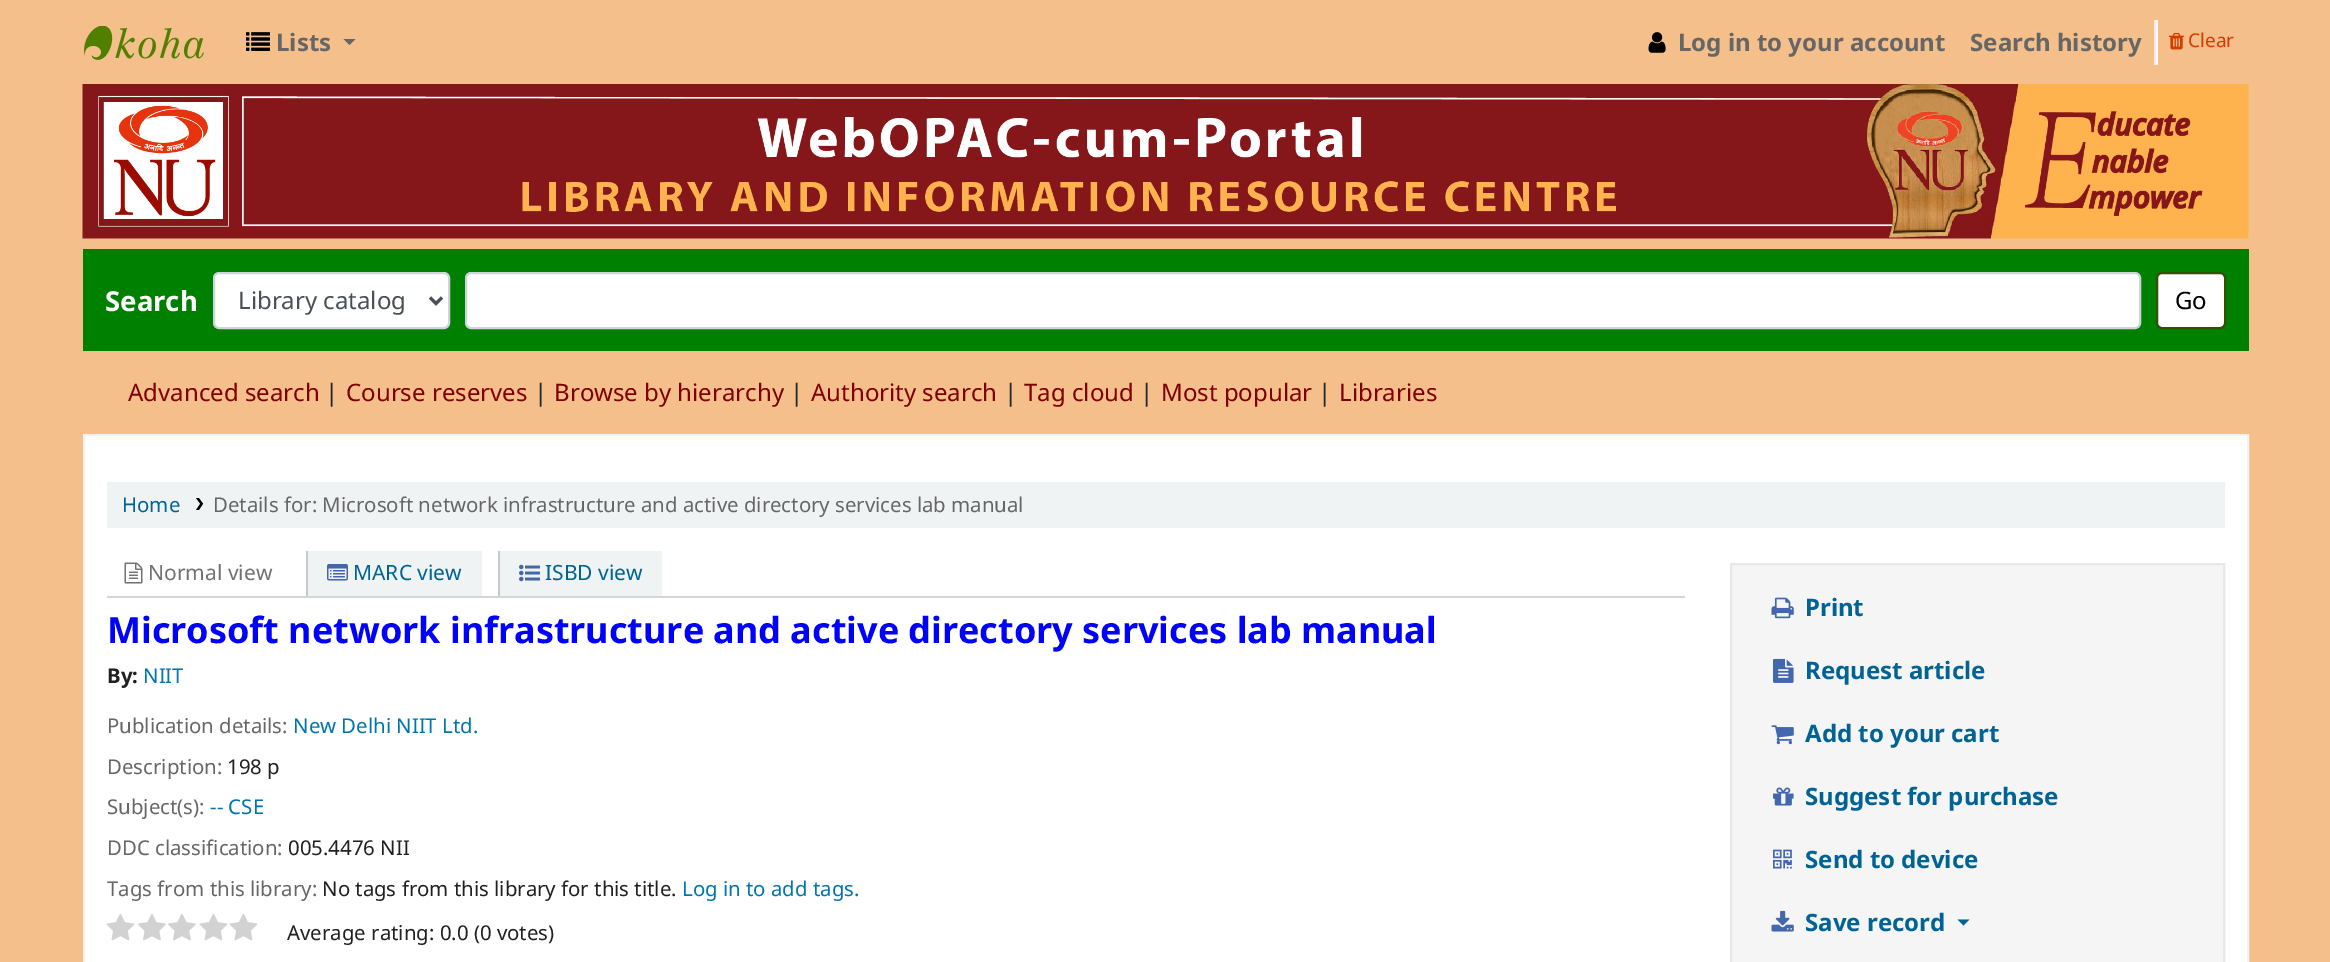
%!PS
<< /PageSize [2330 962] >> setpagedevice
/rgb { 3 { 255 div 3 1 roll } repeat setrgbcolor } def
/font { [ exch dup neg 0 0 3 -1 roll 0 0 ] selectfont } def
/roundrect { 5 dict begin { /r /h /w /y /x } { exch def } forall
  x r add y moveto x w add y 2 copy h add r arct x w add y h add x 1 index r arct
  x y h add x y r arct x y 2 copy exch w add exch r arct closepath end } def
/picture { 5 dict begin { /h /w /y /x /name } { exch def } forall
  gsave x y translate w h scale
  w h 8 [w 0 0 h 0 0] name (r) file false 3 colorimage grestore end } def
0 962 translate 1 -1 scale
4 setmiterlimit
244 191 139 rgb
0 0 2330 962 rectfill
(img/1.rgb) 84 26 120 34 picture
(img/2.rgb) 246 32 24 19 picture
102 102 102 rgb
343.5 39 moveto 355.5 39 lineto 349.5 45 lineto closepath fill
(img/3.rgb) 1648 32 18 21 picture
[
  [2156 20 2 45 252 249 252]
  [2154 63 3 2 238 238 238]
  [2154 20 2 45 238 238 238]
] { aload pop rgb rectfill } forall
(img/4.rgb) 2169 32 16 18 picture
(img/5.rgb) 82 84 2167 155 picture
0 128 0 rgb
83 249 2166 102 rectfill
255 255 255 rgb
214 273 235 55 5 roundrect gsave fill grestore
206 212 218 rgb
2 setlinewidth
stroke
73 80 87 rgb
3 setlinewidth
430 297.5 moveto 436 303.5 lineto 442 297.5 lineto stroke
255 255 255 rgb
466 273 1674 55 5 roundrect gsave fill grestore
206 212 218 rgb
2 setlinewidth
stroke
255 255 255 rgb
2157 273 68 55 5 roundrect gsave fill grestore
51 80 0 rgb
stroke
255 255 255 rgb
84 435 moveto 2248 435 lineto 2248 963 lineto 84 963 lineto closepath gsave fill grestore
240 243 243 rgb
stroke
107 482 2118 46 rectfill
(img/6.rgb) 196 498 8 12 picture
214 214 214 rgb
107 596 1578 2 rectfill
(img/7.rgb) 124 562 19 22 picture
240 243 243 rgb
308 551 174 45 rectfill
201 201 201 rgb
306 551 2 45 rectfill
(img/8.rgb) 327 564 21 17 picture
240 243 243 rgb
500 551 162 45 rectfill
201 201 201 rgb
498 551 2 45 rectfill
(img/9.rgb) 519 564 21 18 picture
(img/10.rgb) 106 914 29 27 picture
(img/11.rgb) 138 914 28 27 picture
(img/11.rgb) 168 914 28 27 picture
(img/10.rgb) 199 914 29 27 picture
(img/10.rgb) 229 914 29 27 picture
245 245 245 rgb
1731 564 moveto 2224 564 lineto 2224 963 lineto 1731 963 lineto closepath gsave fill grestore
232 232 232 rgb
stroke
(img/12.rgb) 1771 597 23 22 picture
(img/13.rgb) 1773 658 21 25 picture
(img/14.rgb) 1771 725 23 20 picture
(img/15.rgb) 1773 787 21 19 picture
(img/16.rgb) 1773 849 19 20 picture
(img/17.rgb) 1771 910 23 22 picture
0 99 148 rgb
1957.5 919.5 moveto 1969.5 919.5 lineto 1963.5 925.5 lineto closepath fill
/NotoSans-Bold 24 font
102 102 102 rgb
[
  [(Lists) 276 51]
  [(Log in to your account) 1678 51]
  [(Search history) 1970 51]
] { aload pop moveto show } forall
/NotoSans-Regular 19 font
212 60 0 rgb
2188 47 moveto (Clear) show
/NotoSans-Bold 27.5 font
255 255 255 rgb
105 311 moveto (Search) show
/NotoSans-Regular 24 font
73 80 87 rgb
238 309 moveto (Library catalog) show
0 0 0 rgb
2175 309 moveto (Go) show
128 0 0 rgb
128 401 moveto (Advanced search) show
33 37 41 rgb
325 401 moveto (|) show
128 0 0 rgb
346 401 moveto (Course reserves) show
33 37 41 rgb
534 401 moveto (|) show
128 0 0 rgb
554 401 moveto (Browse by hierarchy) show
33 37 41 rgb
790 401 moveto (|) show
128 0 0 rgb
811 401 moveto (Authority search) show
33 37 41 rgb
1004 401 moveto (|) show
128 0 0 rgb
1024 401 moveto (Tag cloud) show
33 37 41 rgb
1140 401 moveto (|) show
128 0 0 rgb
1161 401 moveto (Most popular) show
33 37 41 rgb
1318 401 moveto (|) show
128 0 0 rgb
1339 401 moveto (Libraries) show
/NotoSans-Regular 20.4 font
0 99 148 rgb
122 512 moveto (Home) show
102 102 102 rgb
213 512 moveto (Details for: Microsoft network infrastructure and active directory services lab manual) show
/NotoSans-Regular 21 font
114 114 114 rgb
148 580 moveto (Normal view) show
0 99 148 rgb
353 580 moveto (MARC view) show
545 580 moveto (ISBD view) show
/NotoSans-Bold 36 font
0 0 255 rgb
107 643 moveto (Microsoft network infrastructure and active directory services lab manual) show
/NotoSans-Bold 20.4 font
32 32 32 rgb
107 683 moveto (By:) show
/NotoSans-Regular 20.4 font
0 116 173 rgb
143 683 moveto (NIIT) show
102 102 102 rgb
107 733 moveto (Publication details:) show
0 116 173 rgb
293 733 moveto (New Delhi NIIT Ltd.) show
102 102 102 rgb
107 774 moveto (Description:) show
32 32 32 rgb
227 774 moveto (198 p) show
102 102 102 rgb
107 814 moveto (Subject\(s\):) show
0 116 173 rgb
210 814 moveto (-- CSE) show
102 102 102 rgb
107 855 moveto (DDC classification:) show
32 32 32 rgb
288 855 moveto (005.4476 NII) show
102 102 102 rgb
107 896 moveto (Tags from this library:) show
32 32 32 rgb
322 896 moveto (No tags from this library for this title.) show
0 116 173 rgb
682 896 moveto (Log in to add tags.) show
32 32 32 rgb
287 940 moveto (Average rating: 0.0 \(0 votes\)) show
/NotoSans-Bold 24 font
0 99 148 rgb
[
  [(Print) 1805 616]
  [(Request article) 1805 679]
  [(Add to your cart) 1805 742]
  [(Suggest for purchase) 1805 805]
  [(Send to device) 1805 868]
  [(Save record) 1805 931]
] { aload pop moveto show } forall
showpage
